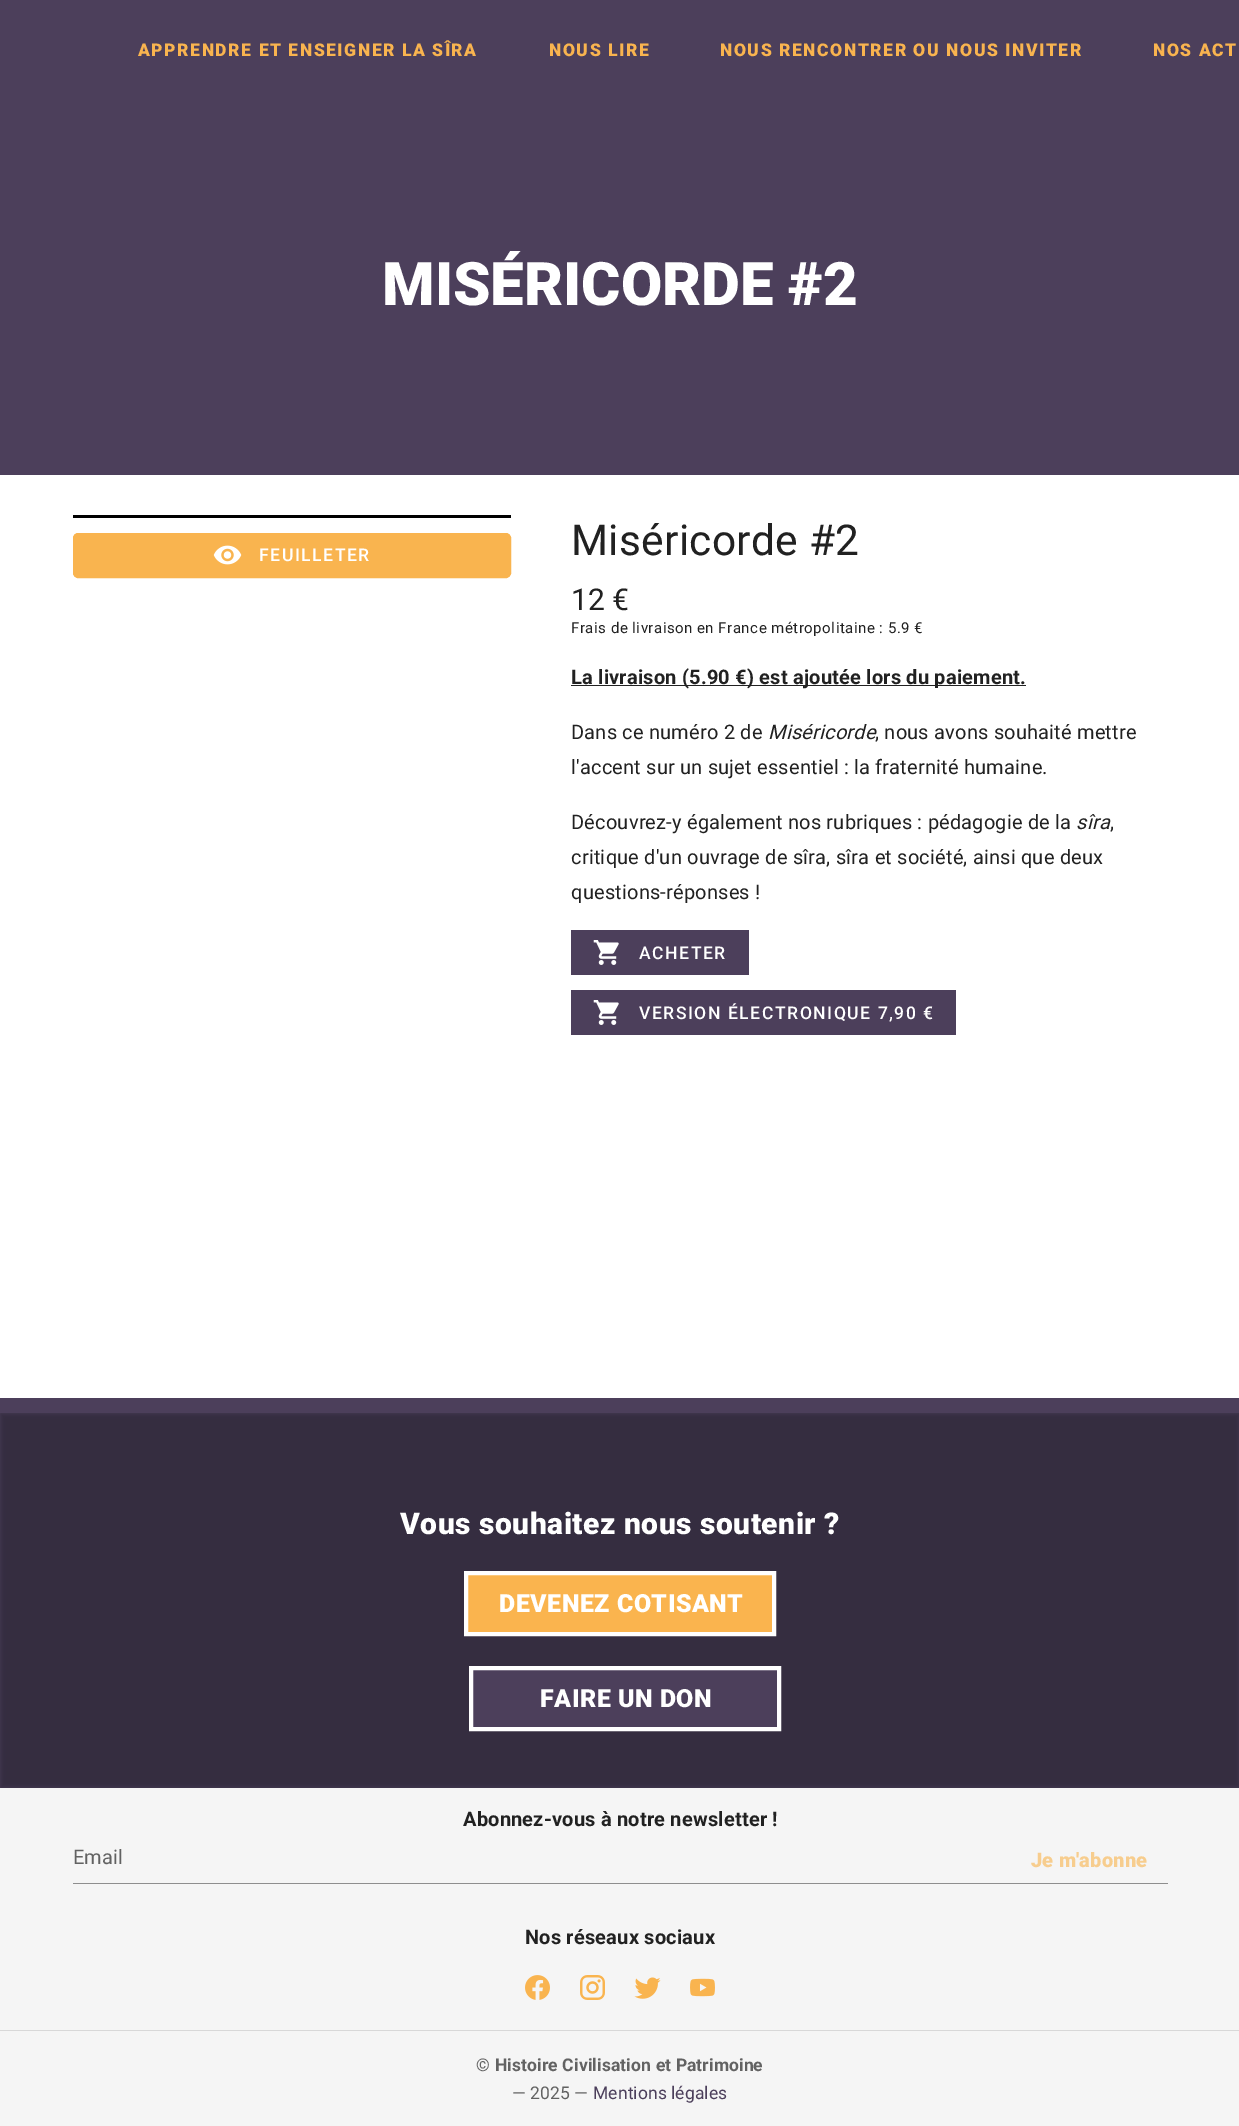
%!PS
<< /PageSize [1239 2126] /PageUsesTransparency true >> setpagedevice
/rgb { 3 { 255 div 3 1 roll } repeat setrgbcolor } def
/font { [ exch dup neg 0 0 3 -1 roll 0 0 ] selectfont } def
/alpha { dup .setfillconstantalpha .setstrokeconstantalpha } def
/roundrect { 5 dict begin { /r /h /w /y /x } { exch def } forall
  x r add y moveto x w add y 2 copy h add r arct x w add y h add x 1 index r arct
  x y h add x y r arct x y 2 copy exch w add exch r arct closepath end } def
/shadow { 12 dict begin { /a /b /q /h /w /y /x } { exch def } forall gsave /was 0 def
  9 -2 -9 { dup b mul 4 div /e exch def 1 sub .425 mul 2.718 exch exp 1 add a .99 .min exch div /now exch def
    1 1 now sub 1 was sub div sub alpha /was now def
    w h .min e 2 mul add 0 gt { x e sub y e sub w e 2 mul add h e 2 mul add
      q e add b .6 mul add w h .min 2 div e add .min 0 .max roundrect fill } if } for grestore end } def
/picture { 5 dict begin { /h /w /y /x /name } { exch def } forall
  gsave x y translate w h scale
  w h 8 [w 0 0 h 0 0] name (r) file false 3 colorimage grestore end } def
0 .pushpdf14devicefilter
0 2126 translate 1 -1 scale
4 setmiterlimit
255 255 255 rgb
0 0 1239 2126 rectfill
76 63 91 rgb
0 0 1239 475 rectfill
0 0 0 rgb
73 515 438 3 rectfill
249 180 79 rgb
73.5 533.5 437 44 4.5 roundrect gsave fill grestore
stroke
(img/1.rgb) 213 545 29 20 picture
33 33 33 rgb
571 685 455 1 rectfill
76 63 91 rgb
571 930 178 45 rectfill
(img/2.rgb) 593 940 26 25 picture
571 990 385 45 rectfill
(img/2.rgb) 593 1000 26 25 picture
245 245 245 rgb
0 1788 1239 338 rectfill
76 63 91 rgb
0 1398 1239 390 rectfill
gsave
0 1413 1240 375 rectclip
0 0 0 rgb
0 1413 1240 375 0 2.5 0.3 shadow
grestore
250 180 78 rgb
466 1573 moveto 774 1573 lineto 774 1634 lineto 466 1634 lineto closepath gsave fill grestore
255 255 255 rgb
4 setlinewidth
stroke
76 63 91 rgb
471 1668 moveto 779 1668 lineto 779 1729 lineto 471 1729 lineto closepath gsave fill grestore
255 255 255 rgb
stroke
142 142 142 rgb
73 1883 1095 1 rectfill
(img/3.rgb) 525 1975 25 25 picture
(img/4.rgb) 580 1975 25 25 picture
(img/5.rgb) 634 1977 27 22 picture
(img/6.rgb) 690 1978 25 19 picture
216 216 216 rgb
0 2030 1239 1 rectfill
/Roboto-Black 17.5 font
249 180 79 rgb
138 56 moveto 1.55 0 (APPRENDRE ET ENSEIGNER LA SÎRA) ashow
549 56 moveto 1.55 0 (NOUS LIRE) ashow
720 56 moveto 1.55 0 (NOUS RENCONTRER OU NOUS INVITER) ashow
1153 56 moveto 1.55 0 (NOS ACT) ashow
/Roboto-Black 60 font
255 255 255 rgb
382 305 moveto (MISÉRICORDE #2) show
/Roboto-Medium 17.5 font
259 561 moveto 1.55 0 (FEUILLETER) ashow
/Roboto-Regular 42.5 font
33 33 33 rgb
571 555 moveto 0.25 0 (Miséricorde #2) ashow
/Roboto-Regular 30 font
571 610 moveto (12 €) show
/Roboto-Regular 15 font
571 633 moveto 0.5 0 (Frais de livraison en France métropolitaine : 5.9 €) ashow
/Roboto-Bold 20 font
571 684 moveto 0.2 0 (La livraison \(5.90 €\) est ajoutée lors du paiement.) ashow
/Roboto-Regular 20 font
571 739 moveto 0.2 0 (Dans ce numéro 2 de) ashow
/Roboto-Italic 20 font
768 739 moveto 0.2 0 (Miséricorde) ashow
/Roboto-Regular 20 font
875 739 moveto 0.2 0 (, nous avons souhaité mettre) ashow
571 774 moveto 0.2 0 (l'accent sur un sujet essentiel : la fraternité humaine.) ashow
571 829 moveto 0.2 0 (Découvrez-y également nos rubriques : pédagogie de la) ashow
/Roboto-Italic 20 font
1076 829 moveto 0.2 0 (sîra) ashow
/Roboto-Regular 20 font
1110 829 moveto 0.2 0 (,) ashow
571 864 moveto 0.2 0 (critique d'un ouvrage de sîra, sîra et société, ainsi que deux) ashow
571 899 moveto 0.2 0 (questions-réponses !) ashow
/Roboto-Medium 17.5 font
255 255 255 rgb
639 959 moveto 1.55 0 (ACHETER) ashow
639 1019 moveto 1.55 0 (VERSION ÉLECTRONIQUE 7,90 €) ashow
/Roboto-Black 30 font
400 1534 moveto 0.5 0 (Vous souhaitez nous soutenir ?) ashow
/Roboto-Black 25 font
499 1612 moveto 0.5 0 (DEVENEZ COTISANT) ashow
540 1707 moveto 0.5 0 (FAIRE UN DON) ashow
/Roboto-Bold 20 font
33 33 33 rgb
463 1826 moveto 0.2 0 (Abonnez-vous à notre newsletter !) ashow
/Roboto-Regular 20 font
98 98 98 rgb
73 1864 moveto (Email) show
/Roboto-Black 20 font
247 205 142 rgb
1031 1867 moveto 0.2 0 (Je m'abonne) ashow
/Roboto-Bold 20 font
33 33 33 rgb
525 1944 moveto 0.2 0 (Nos réseaux sociaux) ashow
/Roboto-Regular 17.5 font
98 98 98 rgb
476 2071 moveto 0.1 0 (©) ashow
/Roboto-Bold 17.5 font
495 2071 moveto 0.1 0 (Histoire Civilisation et Patrimoine) ashow
/Roboto-Regular 17.5 font
512 2099 moveto 0.1 0 (— 2025 —) ashow
76 63 91 rgb
593 2099 moveto 0.1 0 (Mentions légales) ashow
.poppdf14devicefilter showpage
